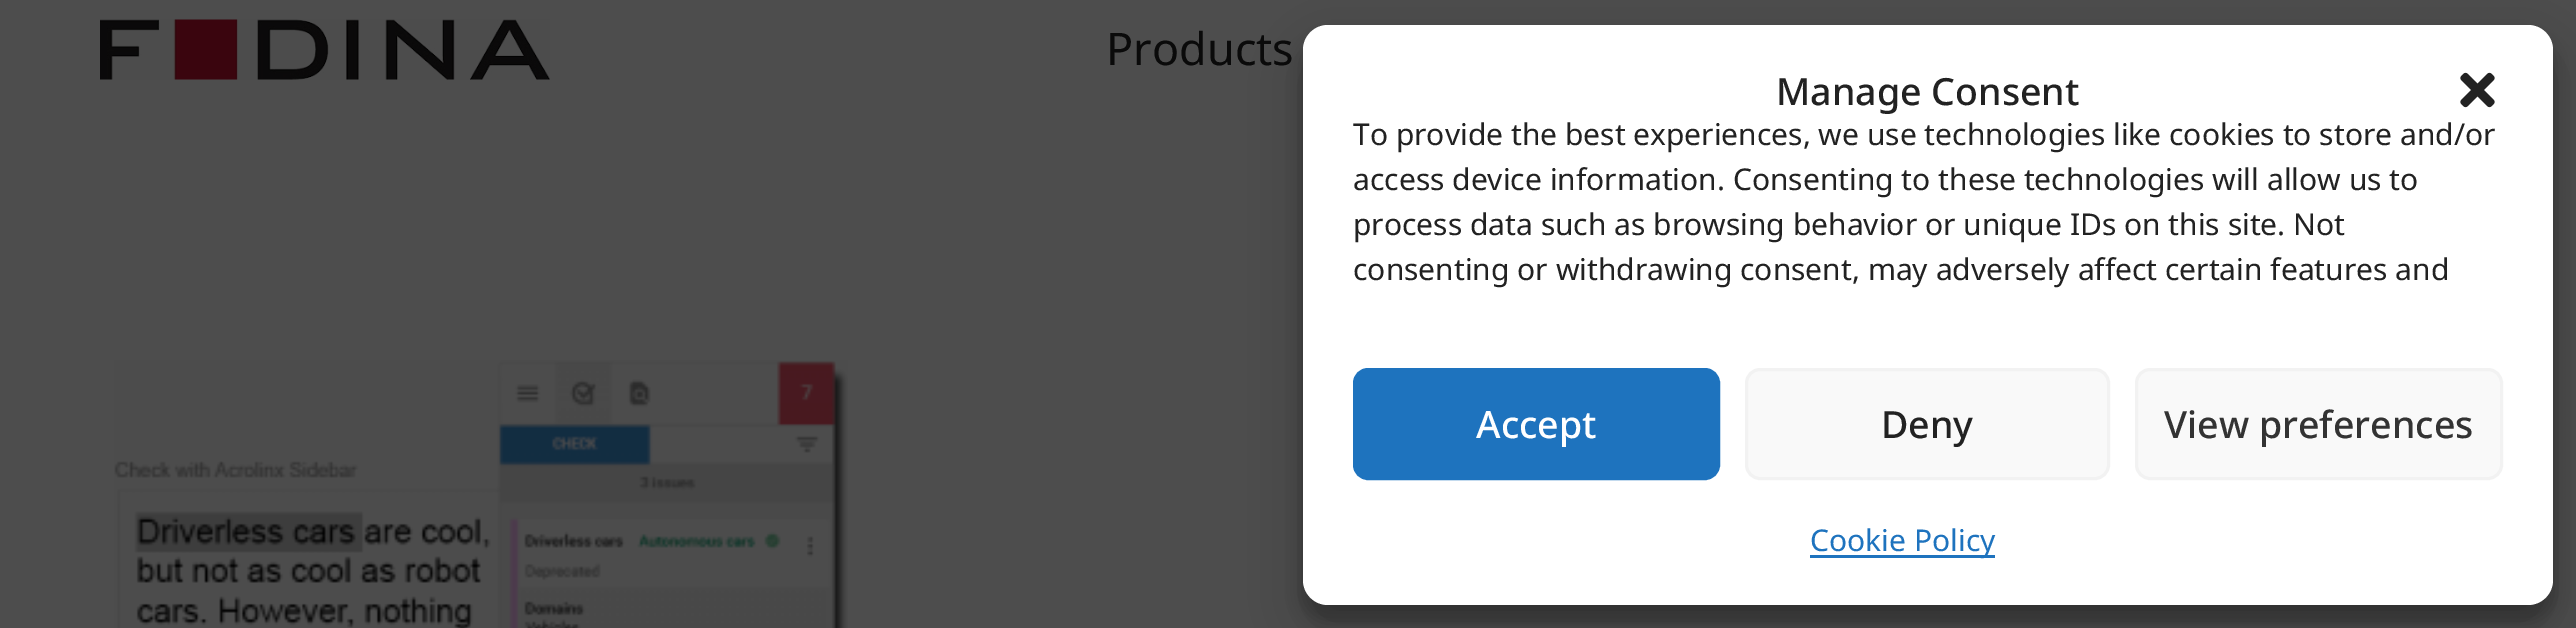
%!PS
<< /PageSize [2576 628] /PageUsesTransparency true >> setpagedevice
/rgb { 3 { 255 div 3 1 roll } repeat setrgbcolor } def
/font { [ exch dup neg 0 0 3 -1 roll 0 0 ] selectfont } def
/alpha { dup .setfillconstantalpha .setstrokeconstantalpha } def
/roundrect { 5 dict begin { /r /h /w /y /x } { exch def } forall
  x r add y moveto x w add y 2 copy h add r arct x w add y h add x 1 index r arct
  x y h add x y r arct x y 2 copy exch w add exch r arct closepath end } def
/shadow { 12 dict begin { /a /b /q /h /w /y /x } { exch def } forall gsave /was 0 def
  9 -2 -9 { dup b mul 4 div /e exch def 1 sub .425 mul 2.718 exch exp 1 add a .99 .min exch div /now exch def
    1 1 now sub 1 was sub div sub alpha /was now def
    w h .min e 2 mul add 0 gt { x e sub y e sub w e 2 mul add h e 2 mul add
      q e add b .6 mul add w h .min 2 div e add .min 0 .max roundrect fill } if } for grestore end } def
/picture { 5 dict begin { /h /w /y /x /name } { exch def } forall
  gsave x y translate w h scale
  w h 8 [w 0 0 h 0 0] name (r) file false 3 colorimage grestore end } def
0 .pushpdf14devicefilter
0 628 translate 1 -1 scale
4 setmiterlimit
77 77 77 rgb
0 0 2576 628 rectfill
(img/1.rgb) 100 19 450 61 picture
(img/2.rgb) 114 360 734 268 picture
0 0 0 rgb
1303 40 1250 580 25 7.5 0.23 shadow
1303 50 1250 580 25 25 0.19 shadow
255 255 255 rgb
1303 25 1250 580 25 roundrect fill
(img/3.rgb) 2460 72 35 36 picture
30 115 190 rgb
1354.5 369.5 364 109 13.5 roundrect gsave fill grestore
3 setlinewidth
stroke
249 249 249 rgb
1746.5 369.5 362 109 13.5 roundrect gsave fill grestore
242 242 242 rgb
stroke
249 249 249 rgb
2136.5 369.5 365 109 13.5 roundrect gsave fill grestore
242 242 242 rgb
stroke
30 115 190 rgb
1810 555 185 3 rectfill
/NotoSans-Regular 45 font
10 10 10 rgb
1106 65 moveto (Products) show
/NotoSans-Medium 37.5 font
34 34 34 rgb
1776 105 moveto (Manage Consent) show
gsave
1353 113 1150 205 rectclip
/NotoSans-Regular 30 font
1353 145 moveto (To provide the best experiences, we use technologies like cookies to store and/or) show
grestore
/NotoSans-Regular 30 font
[
  [(access device information. Consenting to these technologies will allow us to) 1353 190]
  [(process data such as browsing behavior or unique IDs on this site. Not) 1353 235]
  [(consenting or withdrawing consent, may adversely affect certain features and) 1353 280]
] { aload pop moveto show } forall
/NotoSans-Medium 37.5 font
255 255 255 rgb
1476 438 moveto (Accept) show
34 34 34 rgb
1881 438 moveto (Deny) show
51 51 51 rgb
2164 438 moveto (View preferences) show
/NotoSans-Regular 30 font
30 115 190 rgb
1810 551 moveto (Cookie Policy) show
.poppdf14devicefilter showpage
